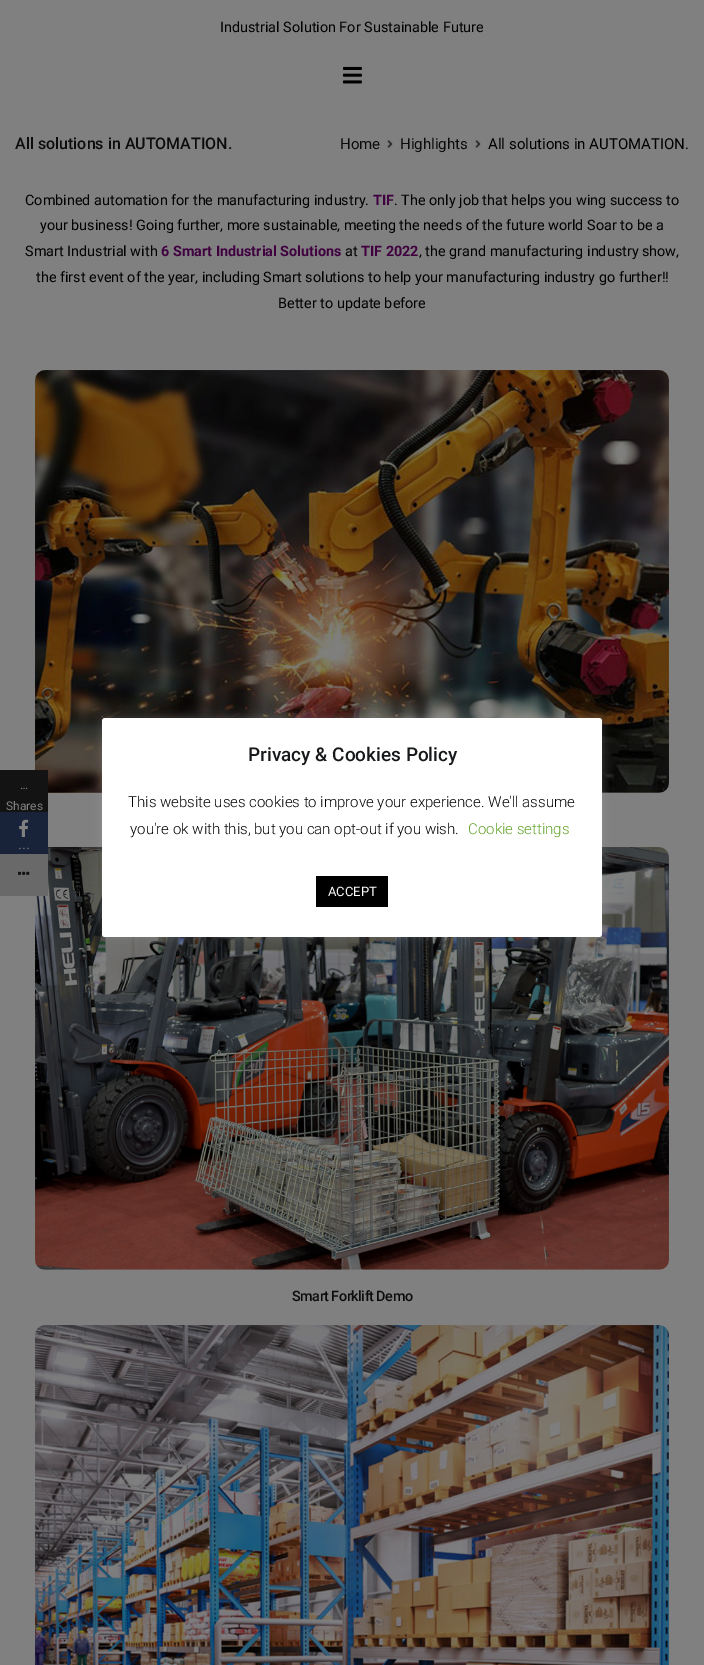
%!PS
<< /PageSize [704 1665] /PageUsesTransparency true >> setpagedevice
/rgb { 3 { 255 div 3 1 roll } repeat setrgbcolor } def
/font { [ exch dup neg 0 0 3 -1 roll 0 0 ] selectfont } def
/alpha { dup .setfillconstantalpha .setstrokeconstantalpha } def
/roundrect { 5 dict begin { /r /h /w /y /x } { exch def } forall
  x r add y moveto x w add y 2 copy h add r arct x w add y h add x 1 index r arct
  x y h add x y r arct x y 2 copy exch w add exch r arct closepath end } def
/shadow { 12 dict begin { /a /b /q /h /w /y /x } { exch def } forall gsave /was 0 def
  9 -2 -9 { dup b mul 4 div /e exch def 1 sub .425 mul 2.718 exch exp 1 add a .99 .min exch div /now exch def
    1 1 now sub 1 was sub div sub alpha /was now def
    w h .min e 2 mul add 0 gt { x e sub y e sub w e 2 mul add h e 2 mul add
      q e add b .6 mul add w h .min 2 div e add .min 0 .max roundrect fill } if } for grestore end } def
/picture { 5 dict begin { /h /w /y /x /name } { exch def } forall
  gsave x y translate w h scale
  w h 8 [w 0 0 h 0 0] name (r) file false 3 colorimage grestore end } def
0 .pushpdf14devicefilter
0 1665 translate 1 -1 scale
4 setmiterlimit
128 128 128 rgb
0 0 704 1665 rectfill
(img/1.rgb) 343 66 19 18 picture
(img/2.rgb) 387 140 6 8 picture
(img/2.rgb) 475 140 6 8 picture
(img/3.rgb) 35 370 634 423 picture
(img/4.rgb) 35 847 634 423 picture
(img/5.rgb) 35 1325 634 340 picture
19 19 19 rgb
0 770 48 42 rectfill
24 35 58 rgb
0 812 48 42 rectfill
(img/6.rgb) 19 819 10 18 picture
105 105 105 rgb
0 854 48 42 rectfill
(img/7.rgb) 18 871 12 4 picture
172 171 171 rgb
102 717 500 219 3 5 0.3 shadow
255 255 255 rgb
102 718 500 219 3 roundrect fill
0 0 0 rgb
316 876 72 31 rectfill
/Roboto-Regular 14.4 font
220 32 moveto (Industrial Solution For Sustainable Future) show
/Roboto-Medium 16 font
11 12 13 rgb
15 149 moveto (All solutions in AUTOMATION.) show
/Roboto-Regular 15 font
340 149 moveto (Home) show
400 149 moveto (Highlights) show
0 0 0 rgb
488 149 moveto (All solutions in AUTOMATION.) show
/Roboto-Regular 14.4 font
25 205 moveto (Combined automation for the manufacturing industry.) show
/Roboto-Bold 14.4 font
64 0 64 rgb
373 205 moveto (TIF) show
/Roboto-Regular 14.4 font
0 0 0 rgb
[
  [(. The only job that helps you wing success to) 394 205]
  [(your business! Going further, more sustainable, meeting the needs of the future world Soar to be a) 40 230]
  [(Smart Industrial with) 25 256]
] { aload pop moveto show } forall
/Roboto-Bold 14.4 font
64 0 64 rgb
161 256 moveto (6 Smart Industrial Solutions) show
/Roboto-Regular 14.4 font
0 0 0 rgb
345 256 moveto (at) show
/Roboto-Bold 14.4 font
64 0 64 rgb
361 256 moveto (TIF 2022) show
/Roboto-Regular 14.4 font
0 0 0 rgb
[
  [(, the grand manufacturing industry show,) 419 256]
  [(the first event of the year, including Smart solutions to help your manufacturing industry go further!!) 36 282]
  [(Better to update before) 278 308]
] { aload pop moveto show } forall
/Roboto-Medium 14.4 font
11 12 13 rgb
292 1301 moveto -0.5 0 (Smart Forklift Demo) ashow
/Roboto-Regular 12 font
128 128 128 rgb
20 789 moveto (…) show
6 810 moveto (Shares) show
/LiberationSerif-Regular 12 font
18 849 moveto (…) show
/Roboto-Medium 19 font
22 24 26 rgb
248 761 moveto (Privacy & Cookies Policy) show
/Roboto-Light 15 font
0 0 0 rgb
128 807 moveto (This website uses cookies to improve your experience. We'll assume) show
130 834 moveto (you're ok with this, but you can opt-out if you wish.) show
98 163 41 rgb
468 834 moveto (Cookie settings) show
/Roboto-Regular 13 font
255 255 255 rgb
328 896 moveto (ACCEPT) show
.poppdf14devicefilter showpage
